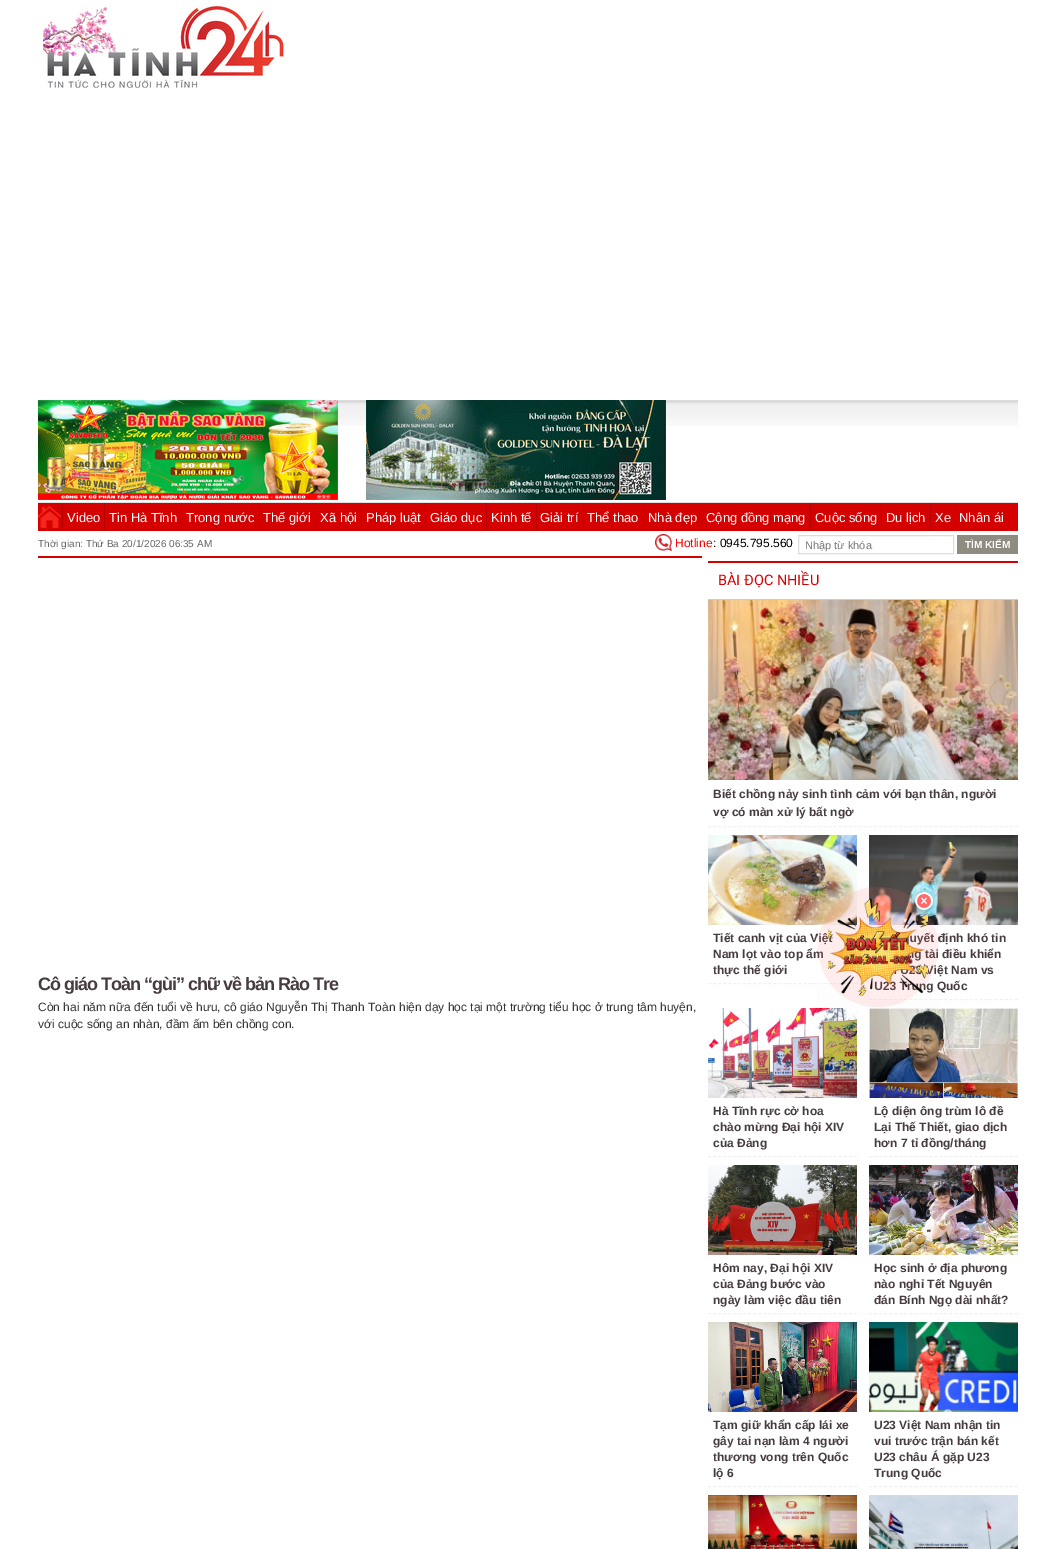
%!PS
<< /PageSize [1056 1549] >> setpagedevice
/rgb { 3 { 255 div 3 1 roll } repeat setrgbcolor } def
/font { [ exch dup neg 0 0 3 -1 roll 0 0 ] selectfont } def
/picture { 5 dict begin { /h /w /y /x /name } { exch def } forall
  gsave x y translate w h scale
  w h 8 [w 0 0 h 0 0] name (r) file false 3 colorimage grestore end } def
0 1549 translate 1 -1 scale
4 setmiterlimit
255 255 255 rgb
0 0 1056 1549 rectfill
(img/1.rgb) 43 6 241 82 picture
(img/2.rgb) 38 400 300 100 picture
(img/5.rgb) 338 401 680 25 picture
221 221 221 rgb
338 400 680 1 rectfill
(img/3.rgb) 366 400 300 100 picture
[
  [38 503 980 28 213 0 0]
  [38 502 980 1 224 224 224]
  [62 503 1 27 180 5 5]
] { aload pop rgb rectfill } forall
(img/4.rgb) 38 506 23 22 picture
[
  [104 503 1 28 180 5 5]
  [181 503 1 28 180 5 5]
  [259 503 1 28 180 5 5]
  [315 503 1 28 180 5 5]
  [361 503 1 28 180 5 5]
  [425 503 1 28 180 5 5]
  [486 503 1 28 180 5 5]
  [536 503 1 28 180 5 5]
  [583 503 1 28 180 5 5]
  [643 503 1 28 180 5 5]
  [701 503 1 28 180 5 5]
  [810 503 1 28 180 5 5]
  [881 503 1 28 180 5 5]
  [930 503 1 28 180 5 5]
  [955 503 1 28 180 5 5]
  [1009 503 1 28 180 5 5]
] { aload pop rgb rectfill } forall
(img/6.rgb) 655 534 17 17 picture
221 221 221 rgb
798.5 535.5 155 18 rectstroke
[
  [957 535 61 19 142 139 128]
  [38 556 664 2 213 0 0]
  [708 561 310 2 213 0 0]
  [708 599 310 1 204 204 204]
] { aload pop rgb rectfill } forall
241 241 241 rgb
[3 2.03] 0 setdash
708 826.5 moveto 1018 826.5 lineto stroke
(img/7.rgb) 708 600 310 180 picture
708 983.5 moveto 857 983.5 lineto stroke
(img/8.rgb) 708 835 149 90 picture
869 999.5 moveto 1018 999.5 lineto stroke
(img/9.rgb) 869 835 149 90 picture
708 1156.5 moveto 857 1156.5 lineto stroke
(img/10.rgb) 708 1008 149 90 picture
869 1156.5 moveto 1018 1156.5 lineto stroke
(img/11.rgb) 869 1008 149 90 picture
708 1313.5 moveto 857 1313.5 lineto stroke
(img/12.rgb) 708 1165 149 90 picture
869 1313.5 moveto 1018 1313.5 lineto stroke
(img/13.rgb) 869 1165 149 90 picture
708 1486.5 moveto 857 1486.5 lineto stroke
(img/14.rgb) 708 1322 149 90 picture
869 1486.5 moveto 1018 1486.5 lineto stroke
(img/15.rgb) 869 1322 149 90 picture
(img/16.rgb) 708 1495 149 54 picture
(img/17.rgb) 869 1495 149 54 picture
/LiberationSans-Regular 13 font
255 255 255 rgb
[
  [(Video) 67 522]
  [(Tin Hà Tĩnh) 109 522]
  [(Trong nước) 186 522]
  [(Thế giới) 263 522]
  [(Xã hội) 320 522]
  [(Pháp luật) 366 522]
  [(Giáo dục) 430 522]
  [(Kinh tế) 491 522]
  [(Giải trí) 540 522]
  [(Thể thao) 587 522]
  [(Nhà đẹp) 648 522]
  [(Cộng đồng mạng) 706 522]
  [(Cuộc sống) 815 522]
  [(Du lịch) 886 522]
  [(Xe) 935 522]
  [(Nhân ái) 959 522]
] { aload pop moveto show } forall
/LiberationSans-Regular 10 font
102 102 102 rgb
38 547 moveto (Thời gian: Thứ Ba 20/1/2026 06:35 AM) show
/LiberationSans-Regular 12 font
255 0 0 rgb
675 547 moveto (Hotline) show
0 0 0 rgb
713 547 moveto (: 0945.795.560) show
/LiberationSans-Regular 11 font
117 117 117 rgb
805 549 moveto (Nhập từ khóa) show
/LiberationSans-Bold 10 font
255 255 255 rgb
965 548 moveto (TÌM KIẾM) show
/LiberationSans-Bold 18 font
70 60 63 rgb
38 990 moveto -1 0 (Cô giáo Toàn “gùi” chữ về bản Rào Tre) ashow
/LiberationSans-Regular 12 font
51 51 51 rgb
38 1011 moveto (Còn hai năm nữa đến tuổi về hưu, cô giáo Nguyễn Thị Thanh Toàn hiện dạy học tại một trường tiểu học ở trung tâm huyện,) show
38 1028 moveto (với cuộc sống an nhàn, đầm ấm bên chồng con.) show
/Roboto-Regular 14.5 font
213 0 0 rgb
718 585 moveto (BÀI ĐỌC NHIỀU) show
/LiberationSans-Bold 12 font
70 60 63 rgb
[
  [(Biết chồng nảy sinh tình cảm với bạn thân, người) 713 798]
  [(vợ có màn xử lý bất ngờ) 713 816]
  [(Tiết canh vịt của Việt) 713 942]
  [(Nam lọt vào top ẩm) 713 958]
  [(thực thế giới) 713 974]
  [(uyết định khó tin) 910 942]
  [(g tài điều khiển) 914 958]
  [(iệt Nam vs) 934 974]
  [(U23 Trung Quốc) 874 990]
  [(Hà Tĩnh rực cờ hoa) 713 1115]
  [(chào mừng Đại hội XIV) 713 1131]
  [(của Đảng) 713 1147]
  [(Lộ diện ông trùm lô đề) 874 1115]
  [(Lại Thế Thiết, giao dịch) 874 1131]
  [(hơn 7 tỉ đồng/tháng) 874 1147]
  [(Hôm nay, Đại hội XIV) 713 1272]
  [(của Đảng bước vào) 713 1288]
  [(ngày làm việc đầu tiên) 713 1304]
  [(Học sinh ở địa phương) 874 1272]
  [(nào nghỉ Tết Nguyên) 874 1288]
  [(đán Bính Ngọ dài nhất?) 874 1304]
  [(Tạm giữ khẩn cấp lái xe) 713 1429]
  [(gây tai nạn làm 4 người) 713 1445]
  [(thương vong trên Quốc) 713 1461]
  [(lộ 6) 713 1477]
  [(U23 Việt Nam nhận tin) 874 1429]
  [(vui trước trận bán kết) 874 1445]
  [(U23 châu Á gặp U23) 874 1461]
  [(Trung Quốc) 874 1477]
] { aload pop moveto show } forall
(img/18.rgb) 817 886 122 122 picture
showpage
